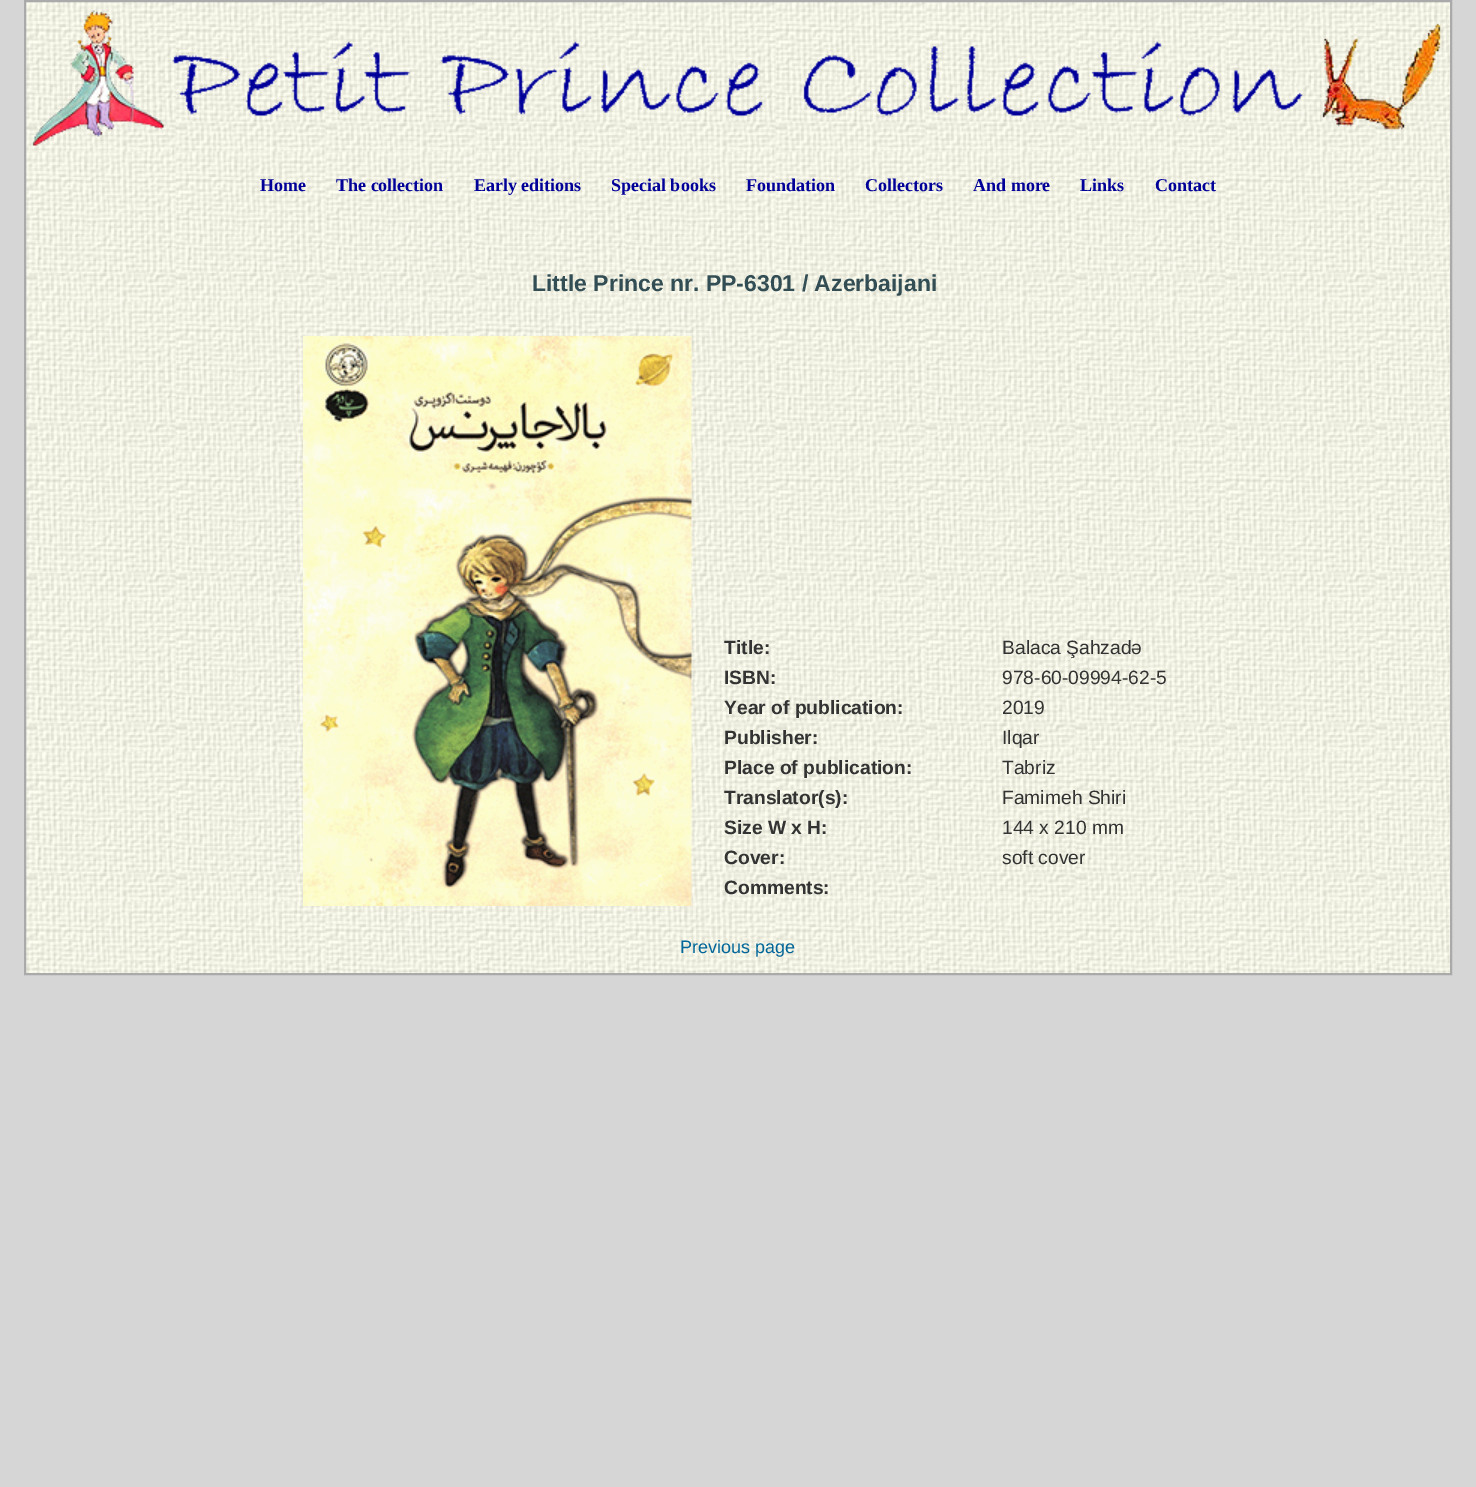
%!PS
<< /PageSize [1476 1487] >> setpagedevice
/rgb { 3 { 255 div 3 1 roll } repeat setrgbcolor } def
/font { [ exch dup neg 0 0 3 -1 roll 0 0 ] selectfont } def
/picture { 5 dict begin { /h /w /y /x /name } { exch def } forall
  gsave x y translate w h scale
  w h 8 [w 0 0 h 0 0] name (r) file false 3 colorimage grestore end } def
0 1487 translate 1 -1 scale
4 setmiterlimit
214 214 214 rgb
0 0 1476 1487 rectfill
(img/1.rgb) 26 2 1424 971 picture
170 170 170 rgb
2 setlinewidth
25 1 1426 973 rectstroke
(img/2.rgb) 32 10 1409 136 picture
(img/3.rgb) 303 336 389 570 picture
/LiberationSerif-Bold 18 font
0 0 153 rgb
[
  [(Home) 260 191]
  [(The collection) 336 191]
  [(Early editions) 474 191]
  [(Special books) 611 191]
  [(Foundation) 746 191]
  [(Collectors) 865 191]
  [(And more) 973 191]
  [(Links) 1080 191]
  [(Contact) 1155 191]
] { aload pop moveto show } forall
/LiberationSans-Bold 23 font
51 77 85 rgb
532 291 moveto (Little Prince nr. PP-6301 / Azerbaijani) show
/LiberationSans-Bold 19.25 font
51 51 51 rgb
724 654 moveto (Title:) show
/LiberationSans-Regular 19.25 font
1002 654 moveto (Balaca Şahzadə) show
/LiberationSans-Bold 19.25 font
724 684 moveto (ISBN:) show
/LiberationSans-Regular 19.25 font
1002 684 moveto (978-60-09994-62-5) show
/LiberationSans-Bold 19.25 font
724 714 moveto (Year of publication:) show
/LiberationSans-Regular 19.25 font
1002 714 moveto (2019) show
/LiberationSans-Bold 19.25 font
724 744 moveto (Publisher:) show
/LiberationSans-Regular 19.25 font
1002 744 moveto (Ilqar) show
/LiberationSans-Bold 19.25 font
724 774 moveto (Place of publication:) show
/LiberationSans-Regular 19.25 font
1002 774 moveto (Tabriz) show
/LiberationSans-Bold 19.25 font
724 804 moveto (Translator\(s\):) show
/LiberationSans-Regular 19.25 font
1002 804 moveto (Famimeh Shiri) show
/LiberationSans-Bold 19.25 font
724 834 moveto (Size W x H:) show
/LiberationSans-Regular 19.25 font
1002 834 moveto (144 x 210 mm) show
/LiberationSans-Bold 19.25 font
724 864 moveto (Cover:) show
/LiberationSans-Regular 19.25 font
1002 864 moveto (soft cover) show
/LiberationSans-Bold 19.25 font
724 894 moveto (Comments:) show
/LiberationSans-Regular 18 font
0 102 153 rgb
680 953 moveto (Previous page) show
showpage
